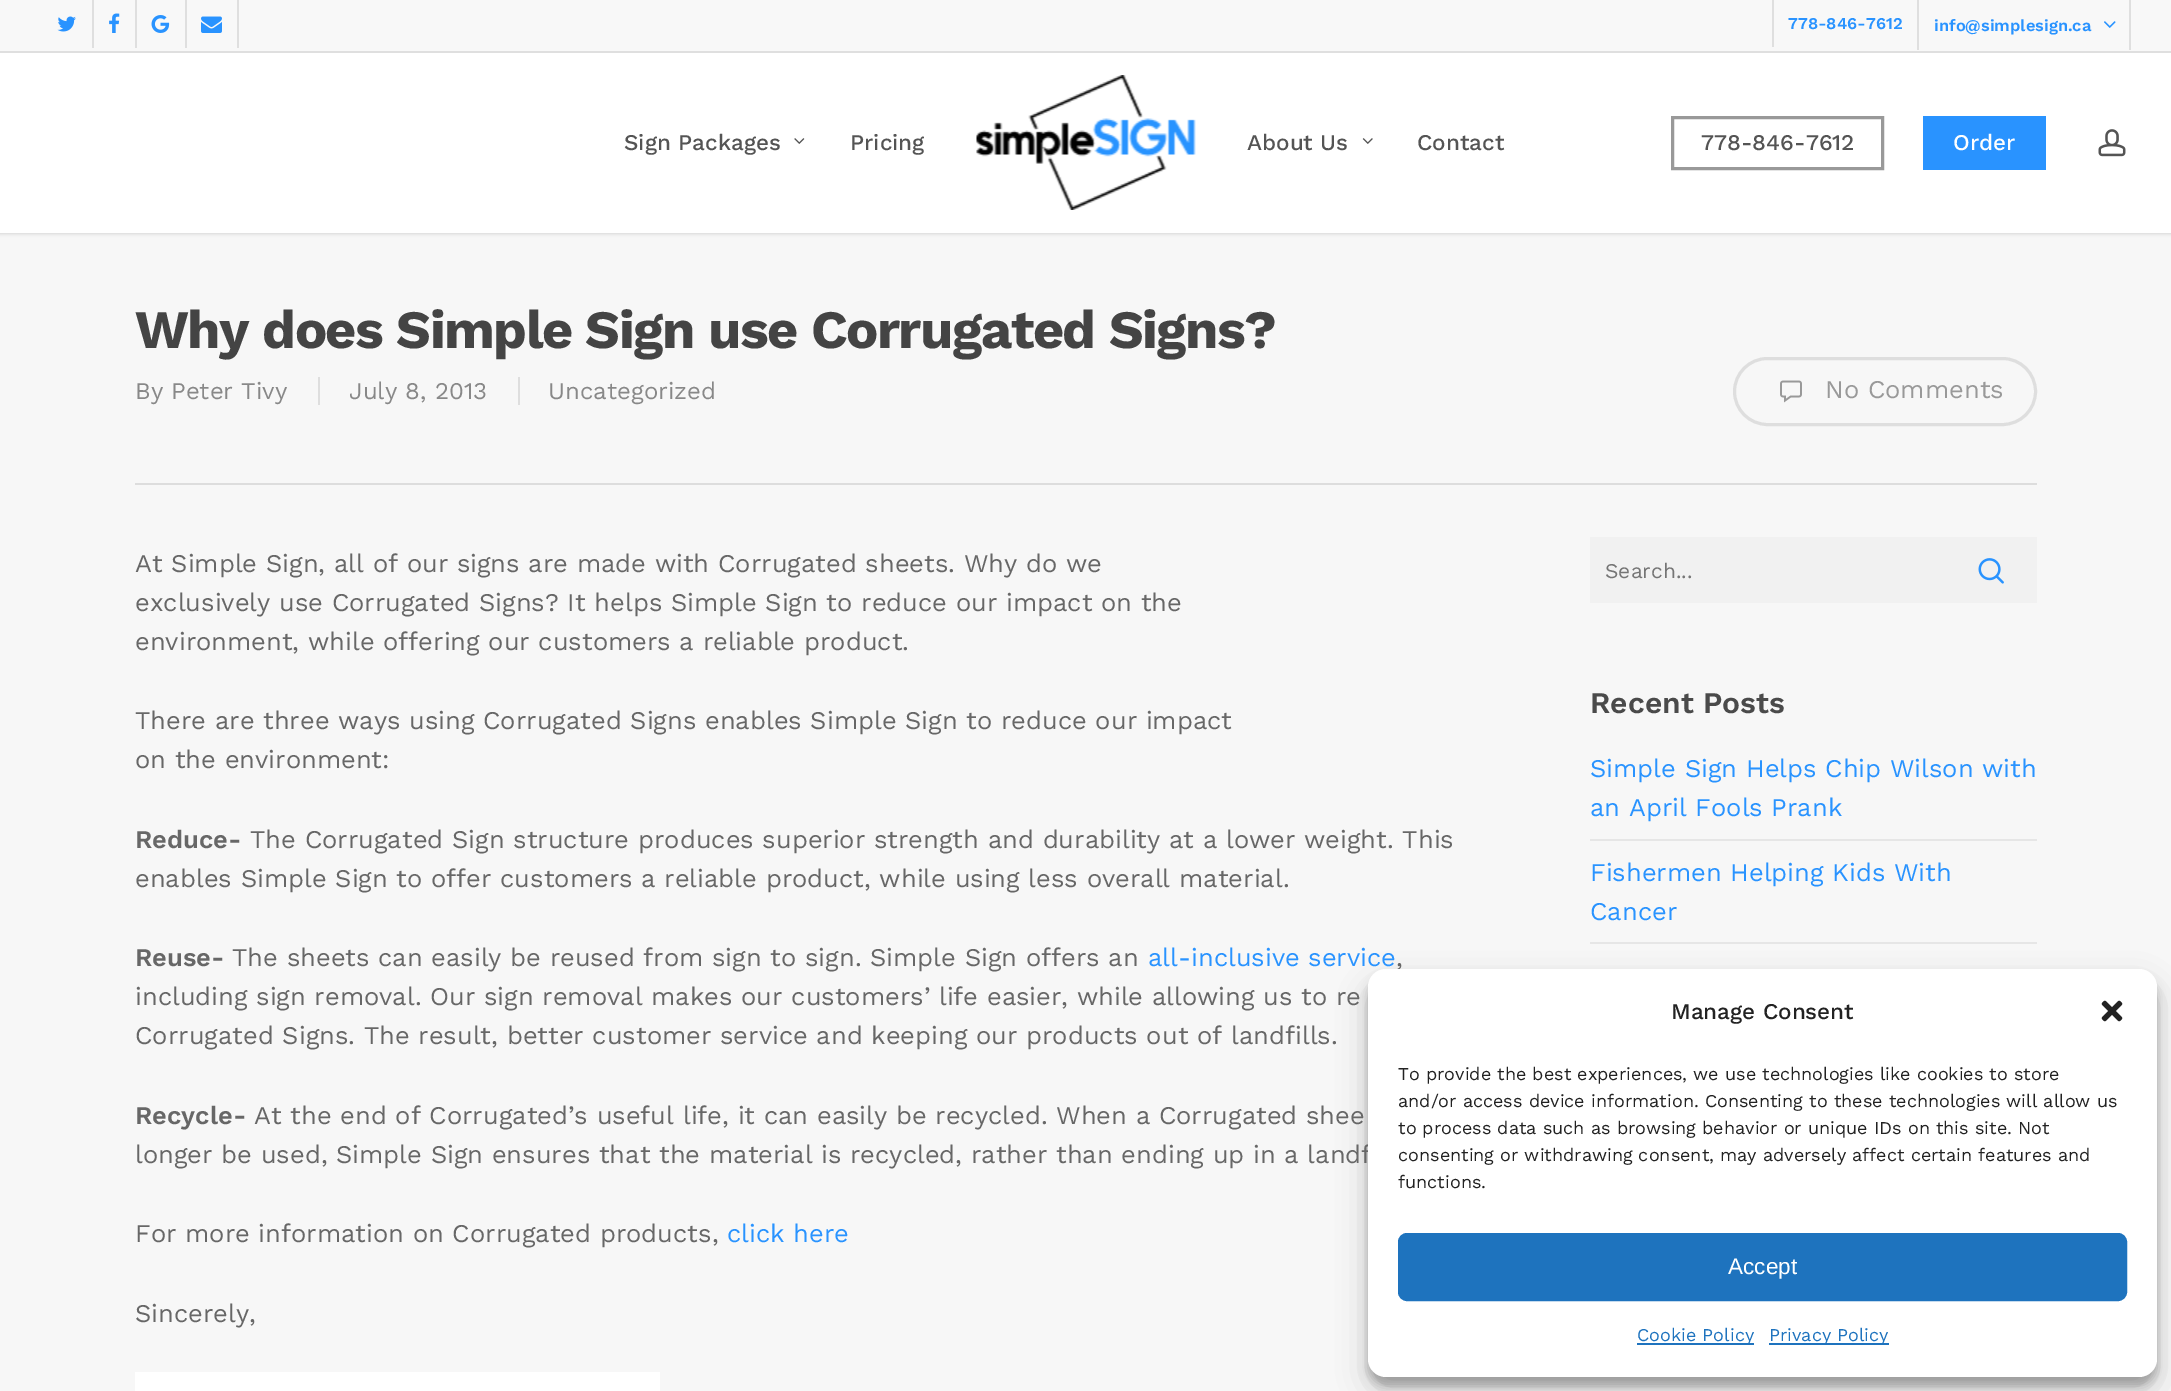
%!PS
<< /PageSize [2171 1391] /PageUsesTransparency true >> setpagedevice
/rgb { 3 { 255 div 3 1 roll } repeat setrgbcolor } def
/font { [ exch dup neg 0 0 3 -1 roll 0 0 ] selectfont } def
/alpha { dup .setfillconstantalpha .setstrokeconstantalpha } def
/roundrect { 5 dict begin { /r /h /w /y /x } { exch def } forall
  x r add y moveto x w add y 2 copy h add r arct x w add y h add x 1 index r arct
  x y h add x y r arct x y 2 copy exch w add exch r arct closepath end } def
/shadow { 12 dict begin { /a /b /q /h /w /y /x } { exch def } forall gsave /was 0 def
  9 -2 -9 { dup b mul 4 div /e exch def 1 sub .425 mul 2.718 exch exp 1 add a .99 .min exch div /now exch def
    1 1 now sub 1 was sub div sub alpha /was now def
    w h .min e 2 mul add 0 gt { x e sub y e sub w e 2 mul add h e 2 mul add
      q e add b .6 mul add w h .min 2 div e add .min 0 .max roundrect fill } if } for grestore end } def
/picture { 5 dict begin { /h /w /y /x /name } { exch def } forall
  gsave x y translate w h scale
  w h 8 [w 0 0 h 0 0] name (r) file false 3 colorimage grestore end } def
0 .pushpdf14devicefilter
0 1391 translate 1 -1 scale
4 setmiterlimit
247 247 247 rgb
0 0 2171 1391 rectfill
0 0 0 rgb
0 0 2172 233 0 2 0.22 shadow
[
  [0 53 2171 180 255 255 255]
  [0 0 2171 51 248 248 248]
  [0 51 2171 2 223 223 223]
] { aload pop rgb rectfill } forall
(img/1.rgb) 57 16 19 16 picture
92 0 2 48 rectfill
(img/2.rgb) 109 13 11 20 picture
135 0 2 48 rectfill
(img/3.rgb) 151 15 19 18 picture
237 0 2 48 rectfill
185 0 2 48 rectfill
(img/4.rgb) 201 16 21 17 picture
[
  [1772 0 2 47 223 223 223]
  [2129 0 2 50 223 223 223]
  [1917 0 2 50 223 223 223]
] { aload pop rgb rectfill } forall
(img/5.rgb) 2104 21 12 7 picture
(img/6.rgb) 976 75 220 135 picture
(img/7.rgb) 794 138 11 6 picture
(img/8.rgb) 1362 138 11 6 picture
153 153 153 rgb
3 setlinewidth
1672.5 117.5 210 51 rectstroke
41 147 255 rgb
1923 116 123 54 rectfill
(img/9.rgb) 2098 129 28 28 picture
[
  [135 483 1902 2 221 221 221]
  [318 377 2 28 222 222 222]
  [518 377 2 28 222 222 222]
] { aload pop rgb rectfill } forall
1734.5 358.5 301 66 33 roundrect stroke
(img/10.rgb) 1780 380 22 23 picture
255 255 255 rgb
135 1372 525 19 rectfill
241 241 241 rgb
1590 537 447 66 rectfill
(img/11.rgb) 1978 558 26 26 picture
230 230 230 rgb
1590 839 447 2 rectfill
1590 942 447 2 rectfill
0 0 0 rgb
1368 978 789 408 18 4.5 0.23 shadow
1368 984 789 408 18 15 0.19 shadow
/WorkSans-SemiBold 16.5 font
41 147 255 rgb
1788 29 moveto (778-846-7612) show
1934 31 moveto (info@simplesign.ca) show
/WorkSans-Medium 22.5 font
84 84 84 rgb
[
  [(Sign Packages) 624 150]
  [(Pricing) 850 150]
  [(About Us) 1247 150]
  [(Contact) 1417 150]
  [(778-846-7612) 1701 150]
] { aload pop moveto show } forall
255 255 255 rgb
1953 150 moveto (Order) show
/WorkSans-Bold 54 font
68 68 68 rgb
135 348 moveto -1.5 0 (Why does Simple Sign use Corrugated Signs?) ashow
/WorkSans-Regular 24 font
136 136 136 rgb
[
  [(By) 135 399]
  [(Peter Tivy) 171 399]
  [(July 8, 2013) 349 399]
  [(Uncategorized) 548 399]
] { aload pop moveto show } forall
/WorkSans-Regular 25.5 font
153 153 153 rgb
1825 398 moveto (No Comments) show
103 103 103 rgb
[
  [(At Simple Sign, all of our signs are made with Corrugated sheets. Why do we) 135 572]
  [(exclusively use Corrugated Signs? It helps Simple Sign to reduce our impact on the) 135 611]
  [(environment, while offering our customers a reliable product.) 135 650]
  [(There are three ways using Corrugated Signs enables Simple Sign to reduce our impact) 135 729]
  [(on the environment:) 135 768]
] { aload pop moveto show } forall
/WorkSans-SemiBold 25.5 font
135 848 moveto (Reduce-) show
/WorkSans-Regular 25.5 font
250 848 moveto (The Corrugated Sign structure produces superior strength and durability at a lower weight. This) show
135 887 moveto (enables Simple Sign to offer customers a reliable product, while using less overall material.) show
/WorkSans-SemiBold 25.5 font
135 966 moveto (Reuse-) show
/WorkSans-Regular 25.5 font
232 966 moveto (The sheets can easily be reused from sign to sign. Simple Sign offers an) show
41 147 255 rgb
1148 966 moveto (all-inclusive service) show
103 103 103 rgb
[
  [(,) 1396 966]
  [(including sign removal. Our sign removal makes our customers’ life easier, while allowing us to re) 135 1005]
  [(Corrugated Signs. The result, better customer service and keeping our products out of landfills.) 135 1044]
] { aload pop moveto show } forall
/WorkSans-SemiBold 25.5 font
135 1124 moveto (Recycle-) show
/WorkSans-Regular 25.5 font
[
  [(At the end of Corrugated’s useful life, it can easily be recycled. When a Corrugated shee) 254 1124]
  [(longer be used, Simple Sign ensures that the material is recycled, rather than ending up in a landf) 135 1163]
  [(For more information on Corrugated products,) 135 1242]
] { aload pop moveto show } forall
41 147 255 rgb
727 1242 moveto (click here) show
103 103 103 rgb
135 1322 moveto (Sincerely,) show
/WorkSans-Regular 21 font
117 117 117 rgb
1605 578 moveto (Search...) show
/WorkSans-SemiBold 30 font
74 74 74 rgb
1590 713 moveto (Recent Posts) show
/WorkSans-Regular 25.5 font
41 147 255 rgb
[
  [(Simple Sign Helps Chip Wilson with) 1590 777]
  [(an April Fools Prank) 1590 816]
  [(Fishermen Helping Kids With) 1590 881]
  [(Cancer) 1590 920]
] { aload pop moveto show } forall
255 255 255 rgb
1368 969 789 408 18 roundrect fill
/WorkSans-Medium 22.5 font
34 34 34 rgb
1671 1019 moveto (Manage Consent) show
(img/12.rgb) 2101 1000 22 22 picture
/WorkSans-Regular 18 font
[
  [(To provide the best experiences, we use technologies like cookies to store) 1398 1080]
  [(and/or access device information. Consenting to these technologies will allow us) 1398 1107]
  [(to process data such as browsing behavior or unique IDs on this site. Not) 1398 1134]
  [(consenting or withdrawing consent, may adversely affect certain features and) 1398 1161]
  [(functions.) 1398 1188]
] { aload pop moveto show } forall
30 115 190 rgb
1399 1234 727 66 8 roundrect gsave fill grestore
2 setlinewidth
stroke
/LiberationSans-Regular 22.5 font
255 255 255 rgb
1728 1274 moveto (Accept) show
30 115 190 rgb
1637 1343 117 2 rectfill
/WorkSans-Regular 18 font
1637 1341 moveto (Cookie Policy) show
1769 1343 120 2 rectfill
1769 1341 moveto (Privacy Policy) show
.poppdf14devicefilter showpage
